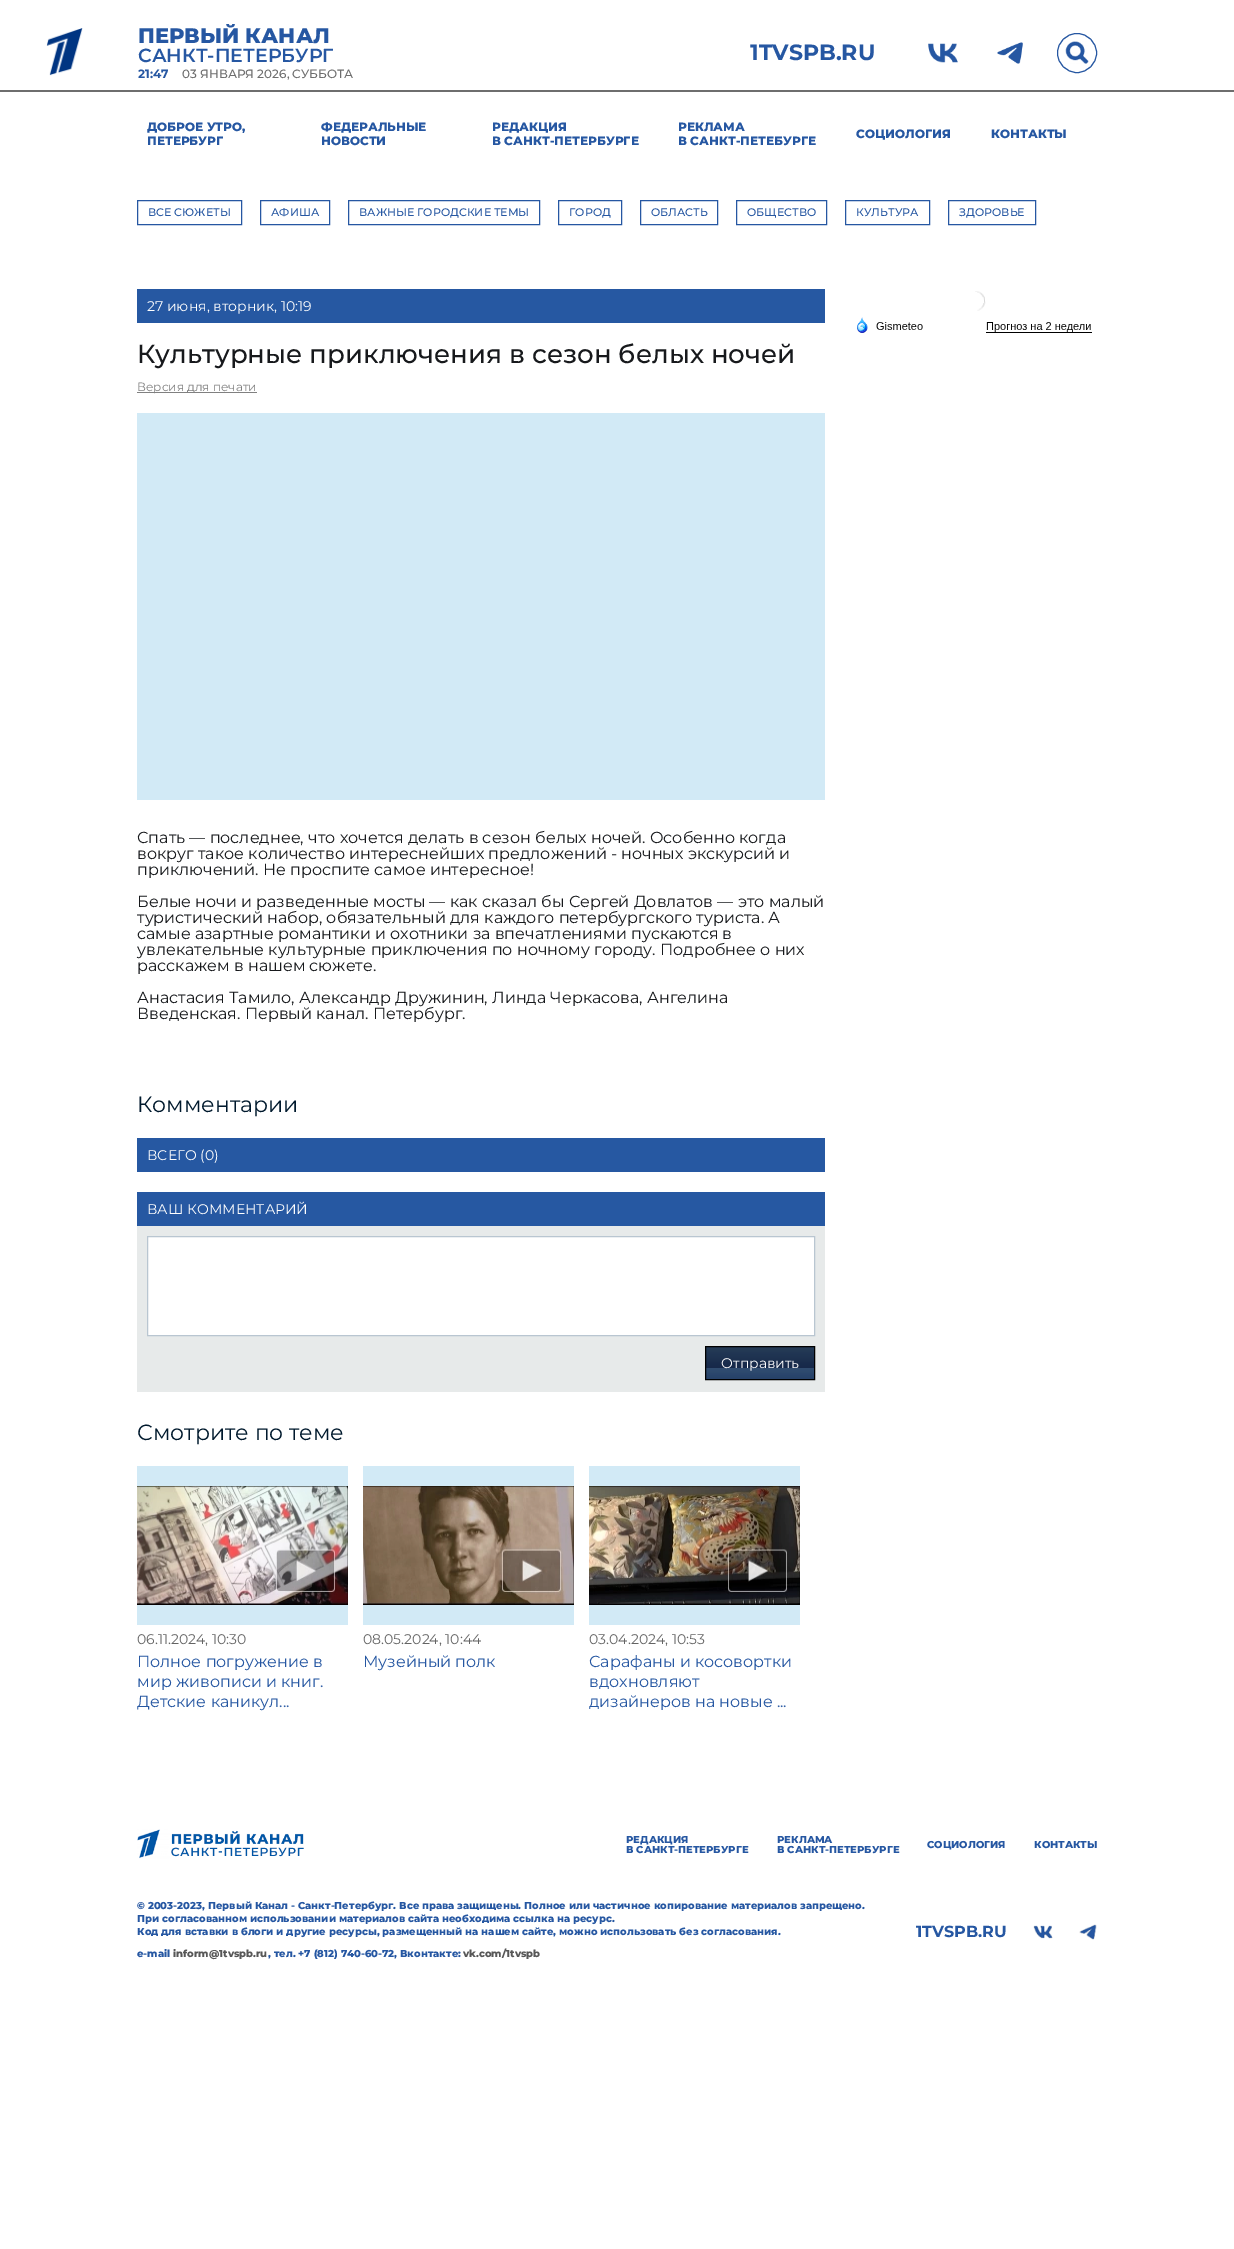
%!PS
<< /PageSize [1234 2249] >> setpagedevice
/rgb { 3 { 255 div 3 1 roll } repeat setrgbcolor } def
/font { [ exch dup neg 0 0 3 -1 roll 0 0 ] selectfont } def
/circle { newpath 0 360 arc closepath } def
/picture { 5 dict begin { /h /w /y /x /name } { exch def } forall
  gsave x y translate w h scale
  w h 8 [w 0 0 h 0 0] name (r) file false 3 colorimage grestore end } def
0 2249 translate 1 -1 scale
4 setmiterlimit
255 255 255 rgb
0 0 1234 2249 rectfill
110 110 110 rgb
0 90 1234 2 rectfill
(img/1.rgb) 46 28 37 48 picture
(img/2.rgb) 928 43 30 20 picture
(img/3.rgb) 997 42 26 22 picture
38 87 162 rgb
1077 53 19.5 circle stroke
(img/4.rgb) 1065 41 24 23 picture
137.5 200.5 104 24 rectstroke
260.5 200.5 69 24 rectstroke
348.5 200.5 191 24 rectstroke
558.5 200.5 63 24 rectstroke
640.5 200.5 77 24 rectstroke
736.5 200.5 90 24 rectstroke
845.5 200.5 84 24 rectstroke
948.5 200.5 87 24 rectstroke
[
  [137 289 688 34 38 88 162]
  [137 392 120 1 128 128 128]
  [137 413 688 387 210 234 246]
  [137 1138 688 34 38 88 162]
  [137 1192 688 34 38 88 162]
  [137 1226 688 166 231 234 234]
] { aload pop rgb rectfill } forall
255 255 255 rgb
147.5 1236.5 moveto 814.5 1236.5 lineto 814.5 1335.5 lineto 147.5 1335.5 lineto closepath gsave fill grestore
185 198 209 rgb
stroke
(img/5.rgb) 706 1347 108 32 picture
0 0 0 rgb
705.5 1346.5 109 33 rectstroke
210 234 246 rgb
137 1466 211 159 rectfill
(img/6.rgb) 137 1486 211 119 picture
363 1466 211 159 rectfill
(img/7.rgb) 363 1486 211 119 picture
589 1466 211 159 rectfill
(img/8.rgb) 589 1486 211 119 picture
(img/9.rgb) 975 291 11 20 picture
(img/10.rgb) 857 317 11 16 picture
(img/11.rgb) 876 322 47 8 picture
(img/12.rgb) 986 322 105 10 picture
0 0 0 rgb
986 332 106 1 rectfill
(img/13.rgb) 137 1829 167 30 picture
(img/14.rgb) 1033 1925 20 14 picture
(img/15.rgb) 1079 1924 18 16 picture
/Montserrat-ExtraBold 21 font
38 87 162 rgb
138 43 moveto (ПЕРВЫЙ КАНАЛ) show
/Montserrat-SemiBold 19 font
138 62 moveto (САНКТ-ПЕТЕРБУРГ) show
/Montserrat-Bold 12 font
138 78 moveto (21:47) show
/Montserrat-Medium 12 font
110 110 110 rgb
182 78 moveto (03 ЯНВАРЯ 2026, СУББОТА) show
/Montserrat-Bold 22 font
38 87 162 rgb
750 60 moveto (1TVSPB.RU) show
/Montserrat-ExtraBold 12 font
[
  [(ДОБРОЕ УТРО,) 147 131]
  [(ПЕТЕРБУРГ) 147 145]
  [(ФЕДЕРАЛЬНЫЕ) 321 131]
  [(НОВОСТИ) 321 145]
  [(РЕДАКЦИЯ) 492 131]
  [(В САНКТ-ПЕТЕРБУРГЕ) 492 145]
  [(РЕКЛАМА) 678 131]
  [(В САНКТ-ПЕТЕБУРГЕ) 678 145]
  [(СОЦИОЛОГИЯ) 856 138]
  [(КОНТАКТЫ) 991 138]
] { aload pop moveto show } forall
/Montserrat-Medium 11 font
[
  [(ВСЕ СЮЖЕТЫ) 148 216]
  [(АФИША) 271 216]
  [(ВАЖНЫЕ ГОРОДСКИЕ ТЕМЫ) 359 216]
  [(ГОРОД) 569 216]
  [(ОБЛАСТЬ) 651 216]
  [(ОБЩЕСТВО) 747 216]
  [(КУЛЬТУРА) 856 216]
  [(ЗДОРОВЬЕ) 959 216]
] { aload pop moveto show } forall
/Montserrat-Regular 14 font
255 255 255 rgb
147 311 moveto (27 июня, вторник, 10:19) show
/Montserrat-Medium 26 font
23 25 28 rgb
137 363 moveto (Культурные приключения в сезон белых ночей) show
/Montserrat-Regular 12 font
128 128 128 rgb
137 391 moveto (Версия для печати) show
/Montserrat-Regular 16 font
23 25 28 rgb
[
  [(Спать — последнее, что хочется делать в сезон белых ночей. Особенно когда) 137 843]
  [(вокруг такое количество интереснейших предложений - ночных экскурсий и) 137 859]
  [(приключений. Не проспите самое интересное!) 137 875]
  [(Белые ночи и разведенные мосты — как сказал бы Сергей Довлатов — это малый) 137 907]
  [(туристический набор, обязательный для каждого петербургского туриста. А) 137 923]
  [(самые азартные романтики и охотники за впечатлениями пускаются в) 137 939]
  [(увлекательные культурные приключения по ночному городу. Подробнее о них) 137 955]
  [(расскажем в нашем сюжете.) 137 971]
  [(Анастасия Тамило, Александр Дружинин, Линда Черкасова, Ангелина) 137 1003]
  [(Введенская. Первый канал. Петербург.) 137 1019]
] { aload pop moveto show } forall
/Montserrat-Regular 22 font
0 25 45 rgb
137 1112 moveto (Комментарии) show
/Montserrat-Regular 14 font
255 255 255 rgb
[
  [(ВСЕГО \(0\)) 147 1160]
  [(ВАШ КОММЕНТАРИЙ) 147 1214]
  [(Отправить) 721 1368]
] { aload pop moveto show } forall
/Montserrat-Regular 22 font
0 25 45 rgb
137 1440 moveto (Смотрите по теме) show
/Montserrat-Regular 14 font
100 100 100 rgb
137 1644 moveto (06.11.2024, 10:30) show
/Montserrat-Regular 16 font
38 87 162 rgb
[
  [(Полное погружение в) 137 1667]
  [(мир живописи и книг.) 137 1687]
  [(Детские каникул...) 137 1707]
] { aload pop moveto show } forall
/Montserrat-Regular 14 font
100 100 100 rgb
363 1644 moveto (08.05.2024, 10:44) show
/Montserrat-Regular 16 font
38 87 162 rgb
363 1667 moveto (Музейный полк) show
/Montserrat-Regular 14 font
100 100 100 rgb
589 1644 moveto (03.04.2024, 10:53) show
/Montserrat-Regular 16 font
38 87 162 rgb
[
  [(Сарафаны и косовортки) 589 1667]
  [(вдохновляют) 589 1687]
  [(дизайнеров на новые ...) 589 1707]
] { aload pop moveto show } forall
/Montserrat-ExtraBold 10 font
[
  [(РЕДАКЦИЯ) 626 1843]
  [(В САНКТ-ПЕТЕРБУРГЕ) 626 1853]
  [(РЕКЛАМА) 777 1843]
  [(В САНКТ-ПЕТЕРБУРГЕ) 777 1853]
  [(СОЦИОЛОГИЯ) 927 1848]
  [(КОНТАКТЫ) 1034 1848]
  [(© 2003-2023, Первый Канал - Санкт-Петербург. Все права защищены. Полное или частичное копирование материалов запрещено.) 137 1909]
  [(При согласованном использовании материалов сайта необходима ссылка на ресурс.) 137 1922]
  [(Код для вставки в блоги и другие ресурсы, размещенный на нашем сайте, можно использовать без согласования.) 137 1935]
  [(e-mail) 137 1957]
] { aload pop moveto show } forall
87 87 87 rgb
173 1957 moveto (inform@1tvspb.ru) show
38 87 162 rgb
268 1957 moveto (, тел. +7 \(812\) 740-60-72, Вконтакте:) show
87 87 87 rgb
463 1957 moveto (vk.com/1tvspb) show
/Montserrat-Bold 16 font
38 87 162 rgb
916 1937 moveto (1TVSPB.RU) show
showpage
